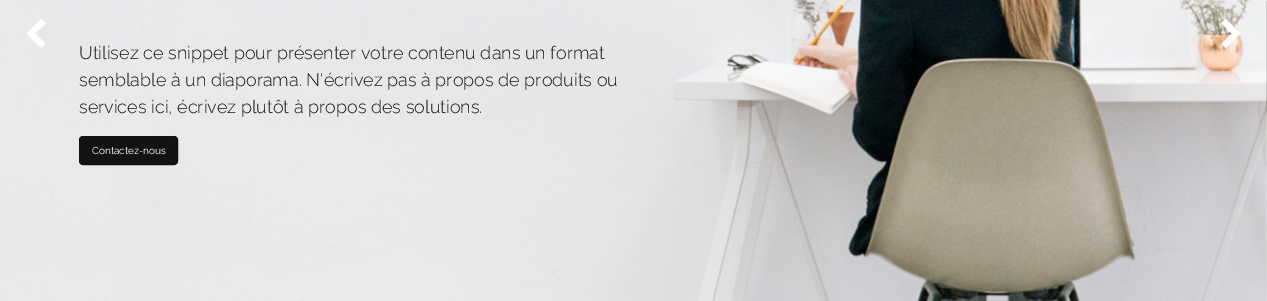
%!PS
<< /PageSize [1267 301] /PageUsesTransparency true >> setpagedevice
/rgb { 3 { 255 div 3 1 roll } repeat setrgbcolor } def
/font { [ exch dup neg 0 0 3 -1 roll 0 0 ] selectfont } def
/alpha { dup .setfillconstantalpha .setstrokeconstantalpha } def
/roundrect { 5 dict begin { /r /h /w /y /x } { exch def } forall
  x r add y moveto x w add y 2 copy h add r arct x w add y h add x 1 index r arct
  x y h add x y r arct x y 2 copy exch w add exch r arct closepath end } def
/shadow { 12 dict begin { /a /b /q /h /w /y /x } { exch def } forall gsave /was 0 def
  9 -2 -9 { dup b mul 4 div /e exch def 1 sub .425 mul 2.718 exch exp 1 add a .99 .min exch div /now exch def
    1 1 now sub 1 was sub div sub alpha /was now def
    w h .min e 2 mul add 0 gt { x e sub y e sub w e 2 mul add h e 2 mul add
      q e add b .6 mul add w h .min 2 div e add .min 0 .max roundrect fill } if } for grestore end } def
/picture { 5 dict begin { /h /w /y /x /name } { exch def } forall
  gsave x y translate w h scale
  w h 8 [w 0 0 h 0 0] name (r) file false 3 colorimage grestore end } def
0 .pushpdf14devicefilter
0 301 translate 1 -1 scale
4 setmiterlimit
255 255 255 rgb
0 0 1267 301 rectfill
32 32 34 rgb
0 2 1267 113 2 2 1 shadow
(img/3.rgb) 0 0 1267 301 picture
(img/1.rgb) 26 19 19 29 picture
(img/2.rgb) 1221 19 19 29 picture
19 19 20 rgb
79.5 136.5 98 28 3.5 roundrect gsave fill grestore
stroke
/Raleway-Light 18 font
[
  [(Utilisez ce snippet pour présenter votre contenu dans un format) 79 59]
  [(semblable à un diaporama. N'écrivez pas à propos de produits ou) 79 86]
  [(services ici, écrivez plutôt à propos des solutions.) 79 113]
] { aload pop moveto show } forall
/Raleway-Regular 10 font
255 255 255 rgb
92 154 moveto (Contactez-nous) show
.poppdf14devicefilter showpage
